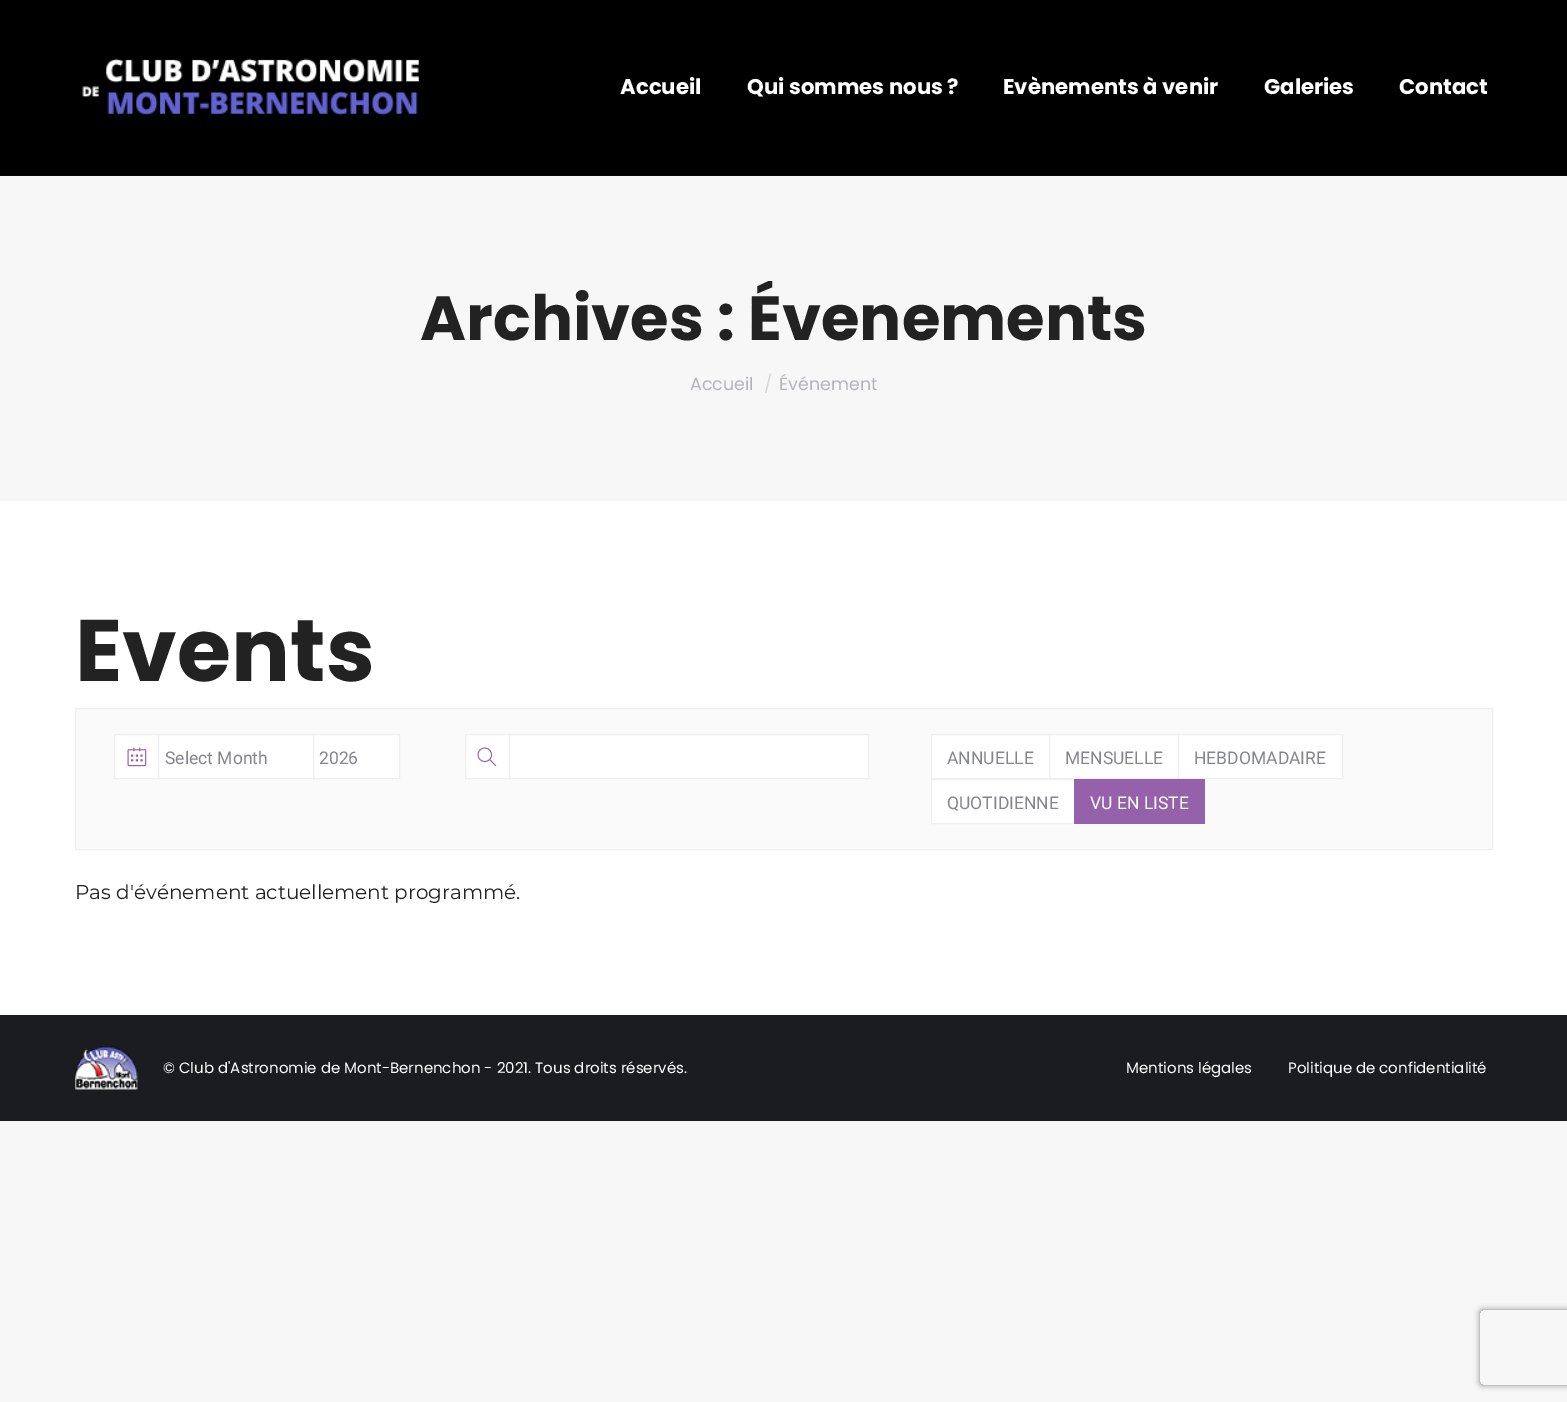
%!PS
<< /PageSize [1567 1402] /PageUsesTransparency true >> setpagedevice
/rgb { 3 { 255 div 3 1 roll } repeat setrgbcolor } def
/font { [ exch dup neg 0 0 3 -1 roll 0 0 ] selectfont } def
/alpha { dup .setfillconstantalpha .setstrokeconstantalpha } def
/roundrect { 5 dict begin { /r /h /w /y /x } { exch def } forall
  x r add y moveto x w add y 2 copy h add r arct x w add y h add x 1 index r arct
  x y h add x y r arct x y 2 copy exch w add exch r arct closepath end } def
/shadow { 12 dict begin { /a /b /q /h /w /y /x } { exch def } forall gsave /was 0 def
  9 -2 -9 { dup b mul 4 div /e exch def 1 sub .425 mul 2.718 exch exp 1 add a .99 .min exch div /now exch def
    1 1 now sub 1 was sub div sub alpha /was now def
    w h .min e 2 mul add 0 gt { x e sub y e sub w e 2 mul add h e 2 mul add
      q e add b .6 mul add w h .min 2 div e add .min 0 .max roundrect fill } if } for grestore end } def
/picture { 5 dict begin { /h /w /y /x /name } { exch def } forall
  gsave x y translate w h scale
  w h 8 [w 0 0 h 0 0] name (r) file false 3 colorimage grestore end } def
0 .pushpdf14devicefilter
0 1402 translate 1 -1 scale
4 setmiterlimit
247 247 247 rgb
0 0 1567 1402 rectfill
[
  [0 501 1567 514 255 255 255]
  [0 0 1567 175 0 0 0]
  [0 175 1567 1 6 6 6]
] { aload pop rgb rectfill } forall
(img/1.rgb) 82 58 337 58 picture
250 250 250 rgb
75.5 708.5 moveto 1492.5 708.5 lineto 1492.5 849.5 lineto 75.5 849.5 lineto closepath gsave fill grestore
239 239 239 rgb
stroke
255 255 255 rgb
114.5 734.5 moveto 158.5 734.5 lineto 158.5 778.5 lineto 114.5 778.5 lineto closepath gsave fill grestore
239 239 239 rgb
stroke
(img/2.rgb) 127 747 20 20 picture
255 255 255 rgb
158.5 734.5 moveto 313.5 734.5 lineto 313.5 778.5 lineto 158.5 778.5 lineto closepath gsave fill grestore
239 239 239 rgb
stroke
255 255 255 rgb
313.5 734.5 moveto 399.5 734.5 lineto 399.5 778.5 lineto 313.5 778.5 lineto closepath gsave fill grestore
239 239 239 rgb
stroke
255 255 255 rgb
465.5 734.5 moveto 509.5 734.5 lineto 509.5 778.5 lineto 465.5 778.5 lineto closepath gsave fill grestore
239 239 239 rgb
stroke
(img/3.rgb) 477 747 20 20 picture
255 255 255 rgb
509.5 734.5 moveto 868.5 734.5 lineto 868.5 778.5 lineto 509.5 778.5 lineto closepath gsave fill grestore
239 239 239 rgb
stroke
255 255 255 rgb
931.5 734.5 moveto 1049.5 734.5 lineto 1049.5 778.5 lineto 931.5 778.5 lineto closepath gsave fill grestore
239 239 239 rgb
stroke
255 255 255 rgb
1049.5 734.5 moveto 1178.5 734.5 lineto 1178.5 778.5 lineto 1049.5 778.5 lineto closepath gsave fill grestore
239 239 239 rgb
stroke
255 255 255 rgb
1178.5 734.5 moveto 1342.5 734.5 lineto 1342.5 778.5 lineto 1178.5 778.5 lineto closepath gsave fill grestore
239 239 239 rgb
stroke
255 255 255 rgb
931.5 779.5 moveto 1074.5 779.5 lineto 1074.5 823.5 lineto 931.5 823.5 lineto closepath gsave fill grestore
239 239 239 rgb
stroke
150 97 171 rgb
1074 779 131 45 rectfill
26 28 32 rgb
0 1015 1567 106 rectfill
(img/4.rgb) 75 1046 63 44 picture
gsave
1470 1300 moveto 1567 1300 lineto 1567 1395 lineto 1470 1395 lineto closepath 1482.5 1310 moveto 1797.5 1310 lineto 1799 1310 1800 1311 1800 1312.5 curveto 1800 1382.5 lineto 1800 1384 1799 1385 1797.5 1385 curveto 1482.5 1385 lineto 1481 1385 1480 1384 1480 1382.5 curveto 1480 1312.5 lineto 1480 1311 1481 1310 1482.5 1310 curveto closepath eoclip newpath
128 128 128 rgb
1480 1310 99 75 2.5 3 1 shadow
grestore
/Poppins-Bold 21.25 font
255 255 255 rgb
[
  [(Accueil) 620 94]
  [(Qui sommes nous ?) 747 94]
  [(Evènements à venir) 1003 94]
  [(Galeries) 1264 94]
  [(Contact) 1399 94]
] { aload pop moveto show } forall
/Poppins-Bold 62.5 font
34 34 34 rgb
420 340 moveto (Archives :) show
gsave
420 281 728 75 rectclip
748 340 moveto (Évenements) show
grestore
/Poppins-Regular 17.5 font
180 181 187 rgb
690 390 moveto (Accueil) show
214 214 217 rgb
764 390 moveto (/) show
180 181 187 rgb
779 390 moveto (Événement) show
/Poppins-Bold 87.5 font
34 34 34 rgb
75 681 moveto (Events) show
/Roboto-Regular 17.5 font
133 134 140 rgb
[
  [(Select Month) 165 764]
  [(2026) 319 764]
  [(ANNUELLE) 947 764]
  [(MENSUELLE) 1065 764]
  [(HEBDOMADAIRE) 1194 764]
  [(QUOTIDIENNE) 947 809]
] { aload pop moveto show } forall
255 255 255 rgb
1090 809 moveto (VU EN LISTE) show
/Montserrat-Regular 20 font
34 34 34 rgb
75 899 moveto (Pas d'événement actuellement programmé.) show
/Poppins-Regular 15 font
255 255 255 rgb
[
  [(© Club d'Astronomie de Mont-Bernenchon - 2021. Tous droits réservés.) 163 1073]
  [(Mentions légales) 1126 1073]
  [(Politique de confidentialité) 1288 1073]
] { aload pop moveto show } forall
.poppdf14devicefilter showpage
